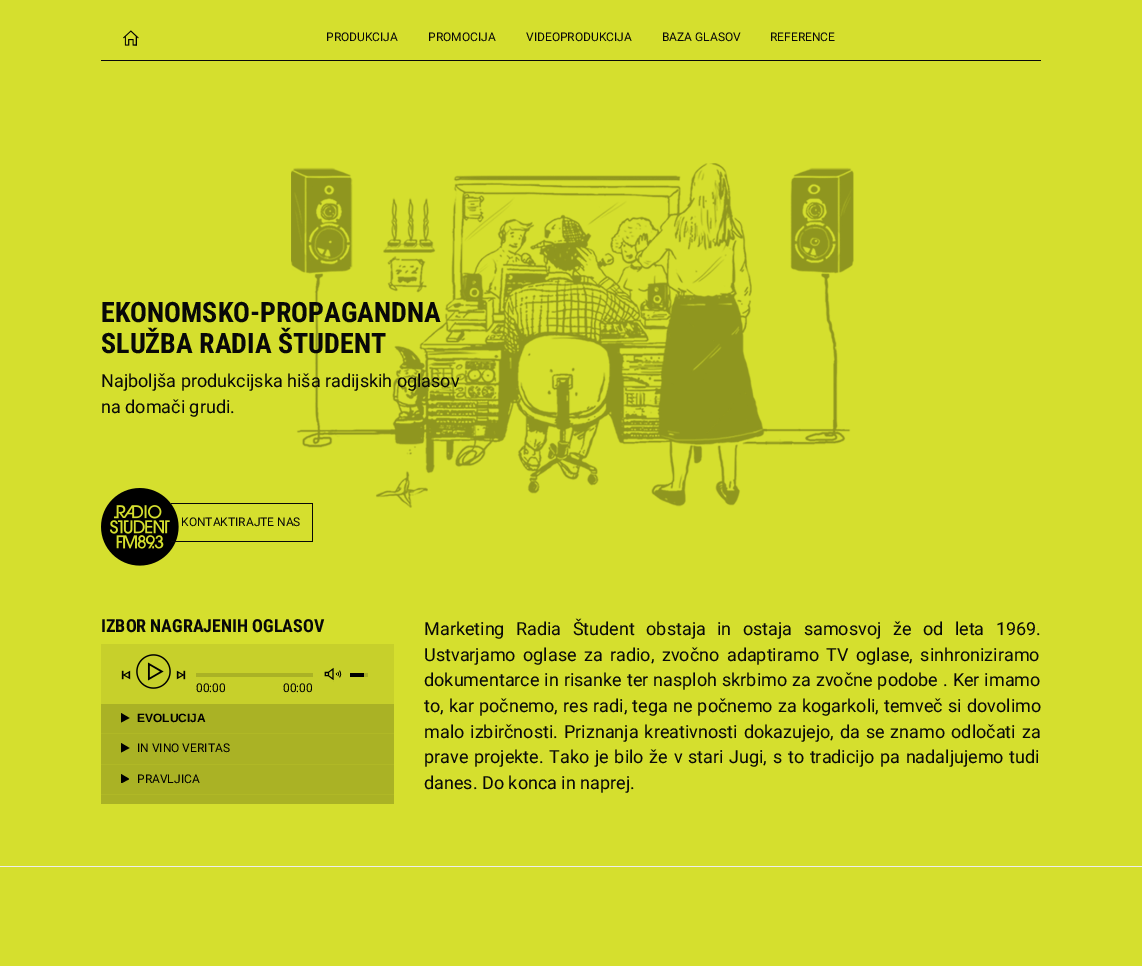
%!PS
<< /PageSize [1142 966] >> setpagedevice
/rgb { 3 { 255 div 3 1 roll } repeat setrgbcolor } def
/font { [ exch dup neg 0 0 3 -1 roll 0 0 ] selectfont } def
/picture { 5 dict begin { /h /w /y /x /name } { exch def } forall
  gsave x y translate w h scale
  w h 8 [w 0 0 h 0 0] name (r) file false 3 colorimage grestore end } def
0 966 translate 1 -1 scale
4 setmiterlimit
213 223 46 rgb
0 0 1142 966 rectfill
8 8 8 rgb
101 60 940 1 rectfill
(img/1.rgb) 123 30 16 16 picture
(img/2.rgb) 291 163 563 345 picture
(img/3.rgb) 101 488 78 78 picture
[
  [171 503 142 1 8 8 8]
  [312 503 1 39 8 8 8]
  [171 541 142 1 8 8 8]
  [101 644 293 60 199 208 43]
] { aload pop rgb rectfill } forall
(img/4.rgb) 121 670 10 10 picture
(img/5.rgb) 136 654 35 35 picture
(img/6.rgb) 176 670 10 10 picture
(img/7.rgb) 324 667 18 15 picture
[
  [196 673 117 4 170 178 37]
  [364 673 4 4 170 178 37]
  [350 673 14 4 0 0 0]
  [101 704 293 100 170 178 37]
  [101 733 293 1 176 184 38]
] { aload pop rgb rectfill } forall
0 0 0 rgb
129.5 718 moveto 121 722.5 lineto 121 713 lineto closepath fill
176 184 38 rgb
101 764 293 1 rectfill
0 0 0 rgb
129.5 748 moveto 121 752.5 lineto 121 743 lineto closepath fill
176 184 38 rgb
101 794 293 1 rectfill
gsave
121 774 8 9 rectclip
0 0 0 rgb
129.5 779 moveto 121 783.5 lineto 121 774 lineto closepath fill
grestore
238 238 238 rgb
0 866 1142 1 rectfill
/Roboto-Regular 12 font
8 8 8 rgb
[
  [(PRODUKCIJA) 326 41]
  [(PROMOCIJA) 428 41]
  [(VIDEOPRODUKCIJA) 526 41]
  [(BAZA GLASOV) 662 41]
  [(REFERENCE) 770 41]
] { aload pop moveto show } forall
/RobotoCondensed-Bold 28 font
101 322 moveto (EKONOMSKO-PROPAGANDNA) show
101 353 moveto (SLUŽBA RADIA ŠTUDENT) show
/Roboto-Regular 18 font
101 387 moveto (Najboljša produkcijska hiša radijskih oglasov) show
101 413 moveto (na domači grudi.) show
/Roboto-Regular 12 font
181 526 moveto (KONTAKTIRAJTE NAS) show
/RobotoCondensed-Bold 18 font
101 632 moveto (IZBOR NAGRAJENIH OGLASOV) show
/Roboto-Regular 12 font
0 0 0 rgb
196 692 moveto (00:00) show
283 692 moveto (00:00) show
/LiberationSans-Bold 12 font
137 722 moveto (EVOLUCIJA) show
/Roboto-Regular 12 font
137 752 moveto (IN VINO VERITAS) show
137 783 moveto (PRAVLJICA) show
/Roboto-Regular 18 font
8 8 8 rgb
424 635 moveto 7 0 32 (Marketing Radia Študent obstaja in ostaja samosvoj že od leta 1969.) widthshow
424 661 moveto 3 0 32 (Ustvarjamo oglase za radio, zvočno adaptiramo TV oglase, sinhroniziramo) widthshow
424 686 moveto 0.5 0 32 (dokumentarce in risanke ter nasploh skrbimo za zvočne podobe . Ker imamo) widthshow
424 712 moveto 0.7 0 32 (to, kar počnemo, res radi, tega ne počnemo za kogarkoli, temveč si dovolimo) widthshow
424 738 moveto 1.5 0 32 (malo izbirčnosti. Priznanja kreativnosti dokazujejo, da se znamo odločati za) widthshow
424 763 moveto 1.25 0 32 (prave projekte. Tako je bilo že v stari Jugi, s to tradicijo pa nadaljujemo tudi) widthshow
424 789 moveto (danes. Do konca in naprej.) show
showpage
